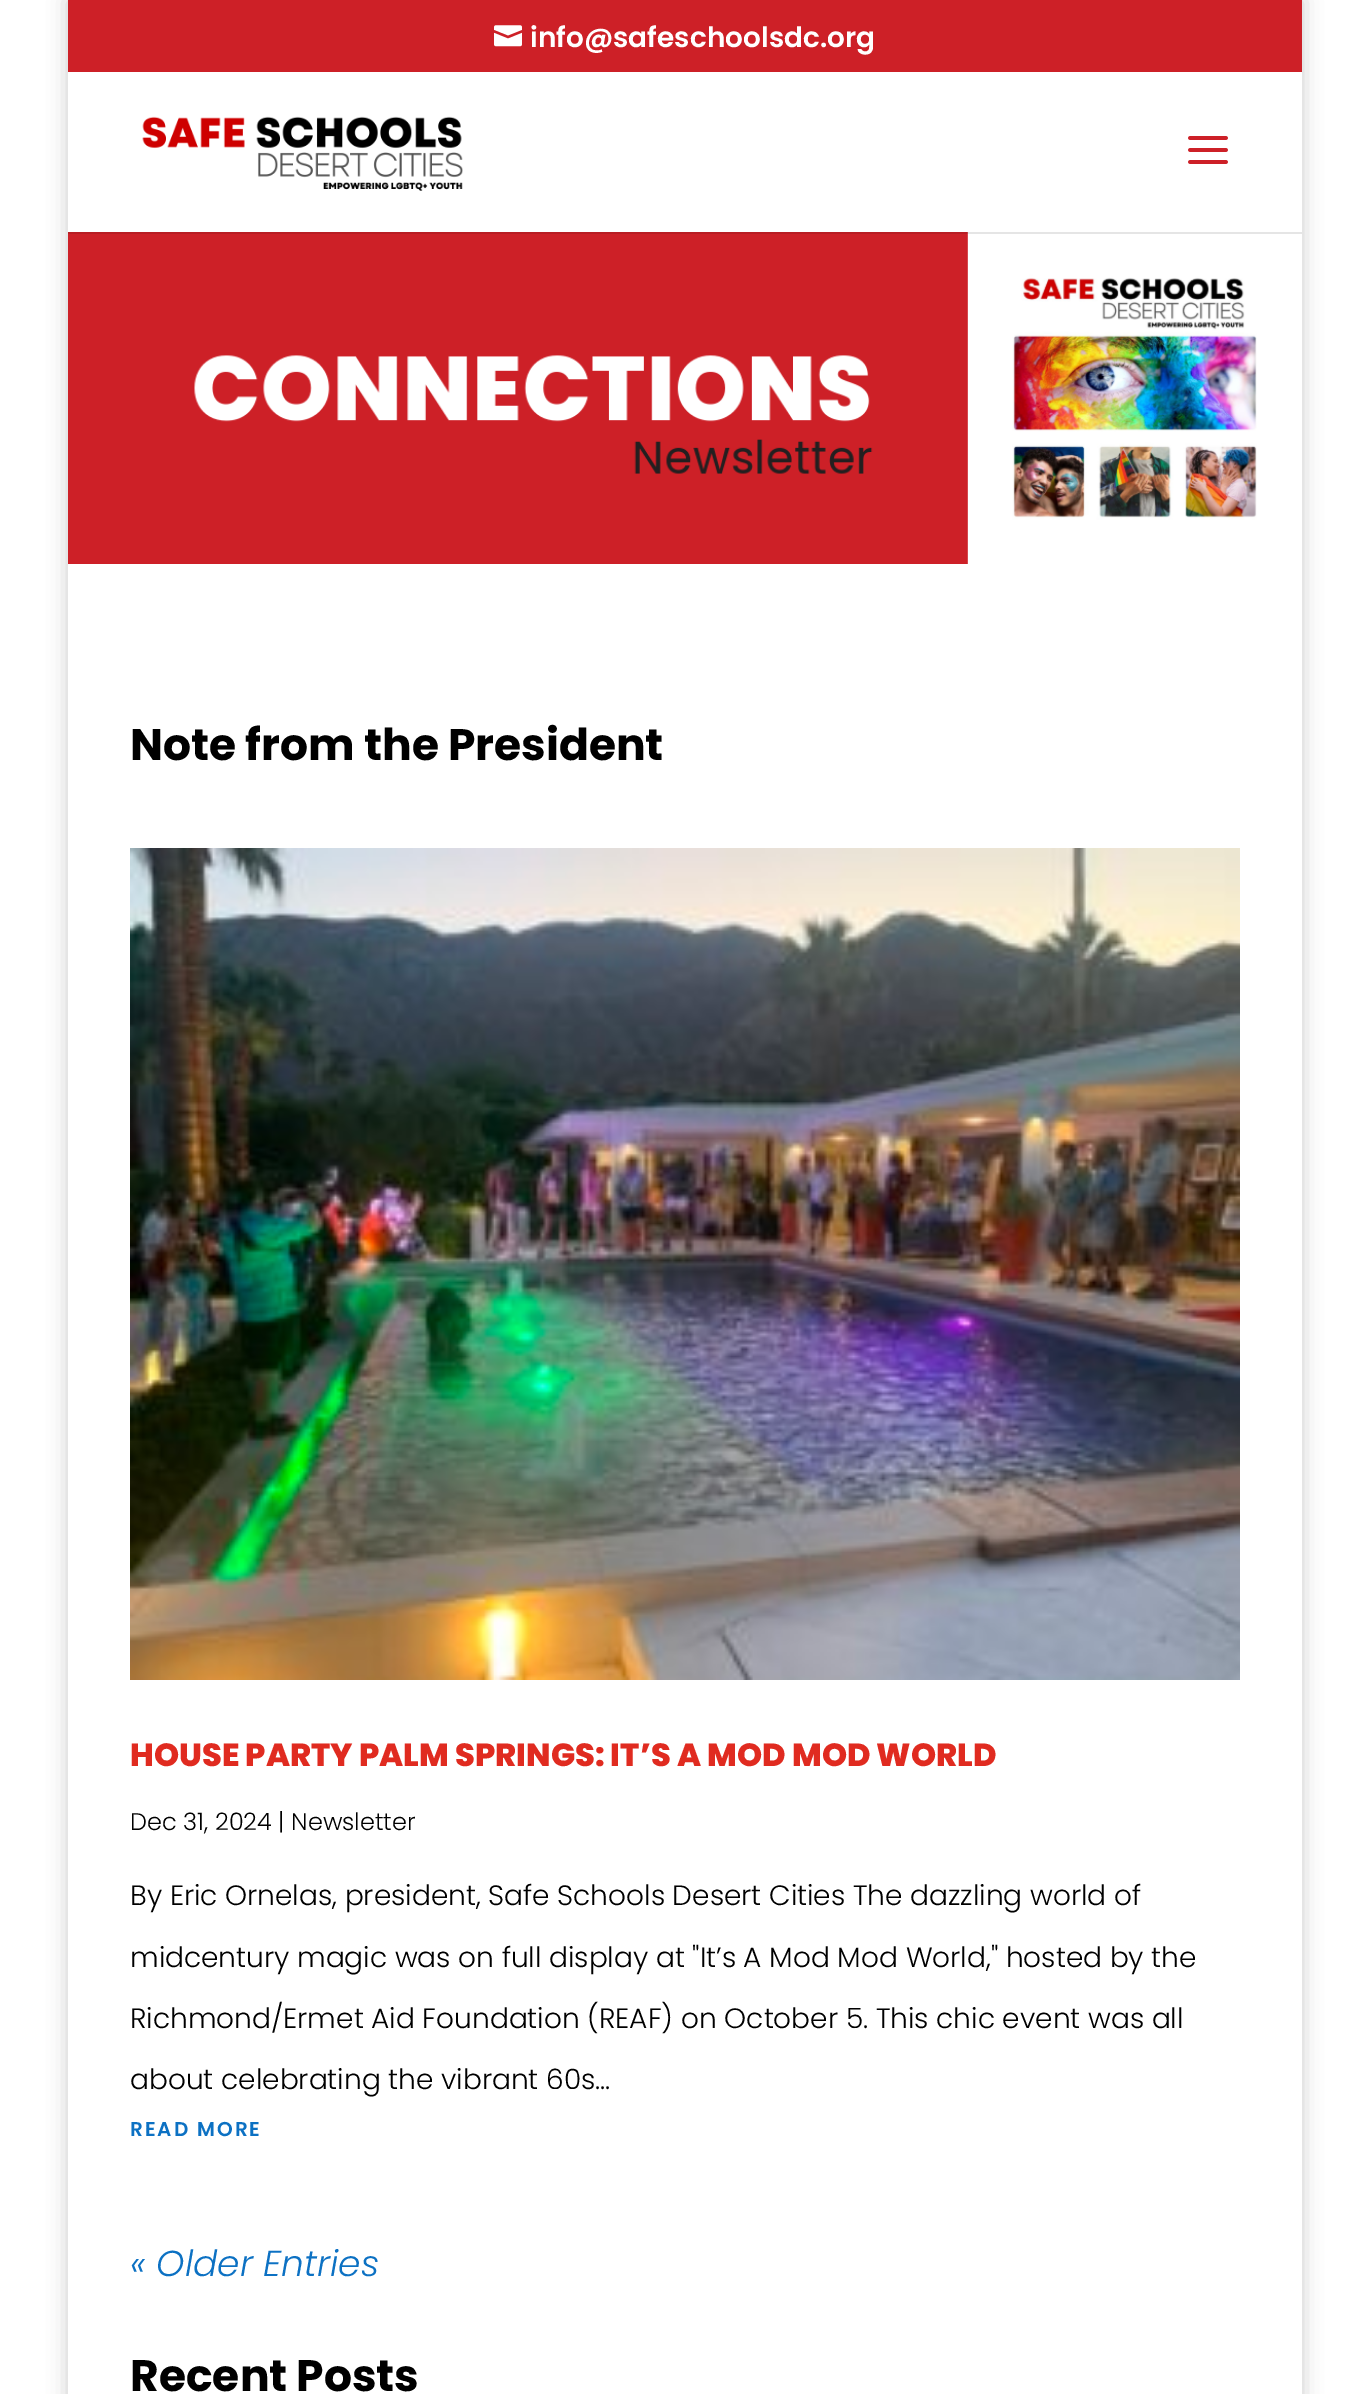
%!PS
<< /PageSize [1369 2394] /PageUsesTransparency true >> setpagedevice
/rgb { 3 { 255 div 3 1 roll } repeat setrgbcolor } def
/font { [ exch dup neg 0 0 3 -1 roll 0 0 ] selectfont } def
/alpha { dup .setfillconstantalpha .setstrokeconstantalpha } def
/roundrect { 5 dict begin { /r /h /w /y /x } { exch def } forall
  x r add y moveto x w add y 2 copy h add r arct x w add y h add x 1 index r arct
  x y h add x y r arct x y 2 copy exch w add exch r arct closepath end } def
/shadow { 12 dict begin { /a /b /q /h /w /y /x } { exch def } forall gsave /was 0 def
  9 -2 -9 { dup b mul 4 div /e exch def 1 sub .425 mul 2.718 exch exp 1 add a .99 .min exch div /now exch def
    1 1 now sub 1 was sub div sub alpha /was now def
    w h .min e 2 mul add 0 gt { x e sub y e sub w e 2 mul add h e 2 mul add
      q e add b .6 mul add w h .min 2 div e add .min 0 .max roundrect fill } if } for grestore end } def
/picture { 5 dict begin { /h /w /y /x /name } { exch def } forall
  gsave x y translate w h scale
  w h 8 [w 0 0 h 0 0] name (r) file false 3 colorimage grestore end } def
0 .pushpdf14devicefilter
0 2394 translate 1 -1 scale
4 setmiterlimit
255 255 255 rgb
0 0 1369 2394 rectfill
gsave
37 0 moveto 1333 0 lineto 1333 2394 lineto 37 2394 lineto closepath 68 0 moveto 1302 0 lineto 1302 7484 lineto 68 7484 lineto closepath eoclip newpath
0 0 0 rgb
68 0 1234 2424 0 10 0.2 shadow
grestore
205 32 39 rgb
68 0 1234 72 rectfill
(img/1.rgb) 494 25 28 22 picture
(img/4.rgb) 68 232 1189 332 picture
0.1 alpha
0 0 0 rgb
68 232 1234 2 rectfill
1 alpha
(img/2.rgb) 142 116 321 75 picture
(img/3.rgb) 1188 136 40 28 picture
(img/5.rgb) 130 848 1110 832 picture
/Poppins-SemiBold 28 font
255 255 255 rgb
530 47 moveto (info@safeschoolsdc.org) show
/Poppins-Bold 44 font
0 0 0 rgb
130 760 moveto (Note from the President) show
/Poppins-ExtraBold 32 font
224 43 32 rgb
130 1766 moveto (HOUSE PARTY PALM SPRINGS: IT’S A MOD MOD WORLD) show
/Poppins-Light 24 font
0 0 0 rgb
130 1830 moveto (Dec 31, 2024 | Newsletter) show
/Poppins-Light 28 font
[
  [(By Eric Ornelas, president, Safe Schools Desert Cities The dazzling world of) 130 1905]
  [(midcentury magic was on full display at "It’s A Mod Mod World," hosted by the) 130 1967]
  [(Richmond/Ermet Aid Foundation \(REAF\) on October 5. This chic event was all) 130 2028]
  [(about celebrating the vibrant 60s...) 130 2089]
] { aload pop moveto show } forall
/Poppins-SemiBold 20 font
12 113 195 rgb
130 2136 moveto 2 0 (READ MORE) ashow
/Poppins-LightItalic 36 font
130 2276 moveto (« Older Entries) show
/Poppins-Bold 44 font
0 0 0 rgb
130 2391 moveto (Recent Posts) show
.poppdf14devicefilter showpage
